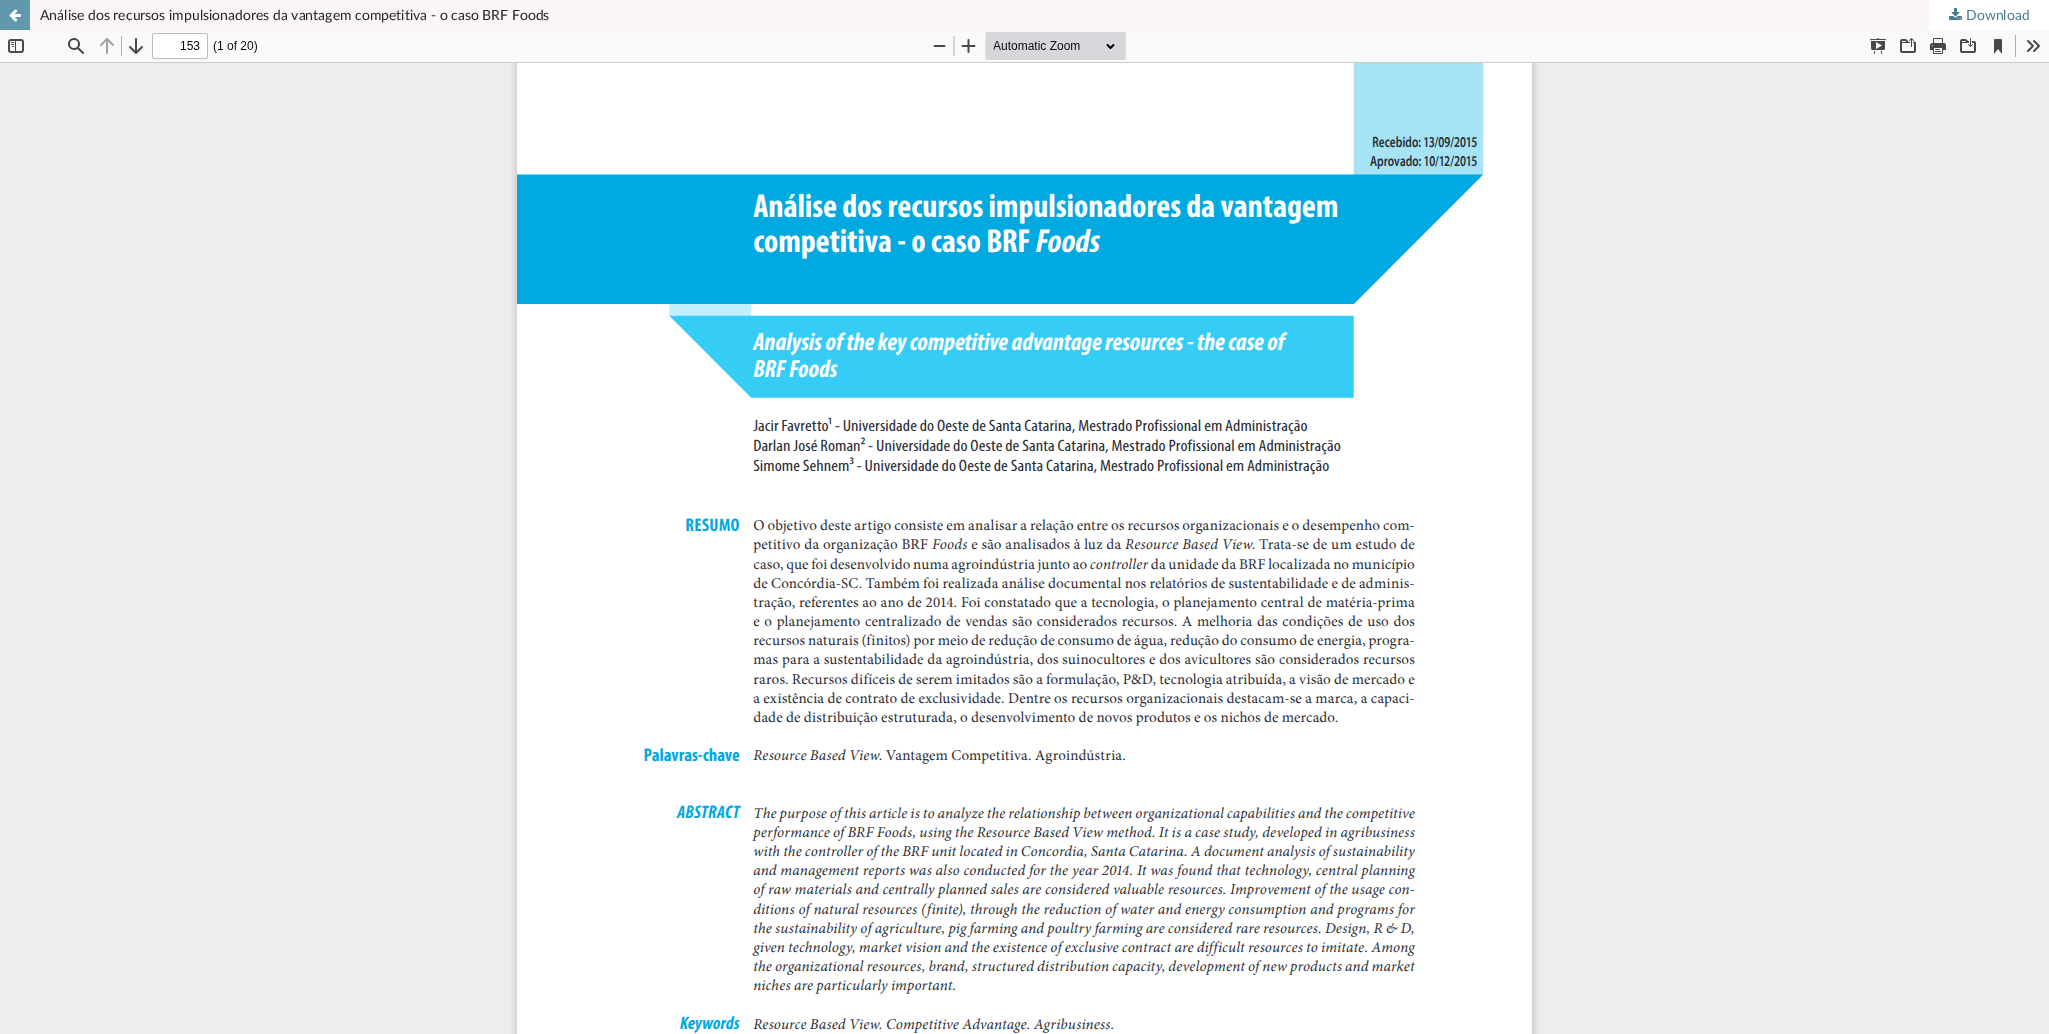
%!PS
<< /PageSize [2049 1034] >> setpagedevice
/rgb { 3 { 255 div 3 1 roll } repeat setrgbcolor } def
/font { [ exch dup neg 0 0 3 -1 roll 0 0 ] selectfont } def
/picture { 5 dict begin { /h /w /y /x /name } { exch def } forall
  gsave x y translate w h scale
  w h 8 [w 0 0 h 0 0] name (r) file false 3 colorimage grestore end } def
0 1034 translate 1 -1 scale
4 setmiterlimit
255 255 255 rgb
0 0 2049 1034 rectfill
250 246 246 rgb
30 0 1899 30 rectfill
98 152 174 rgb
0 0 30 30 rectfill
(img/1.rgb) 9 9 12 13 picture
(img/2.rgb) 1949 8 13 12 picture
(img/3.rgb) 0 30 2049 1004 picture
/Lato-Regular 14 font
40 39 39 rgb
40 20 moveto (Análise dos recursos impulsionadores da vantagem competitiva - o caso BRF Foods) show
75 125 146 rgb
1966 20 moveto (Download) show
showpage
